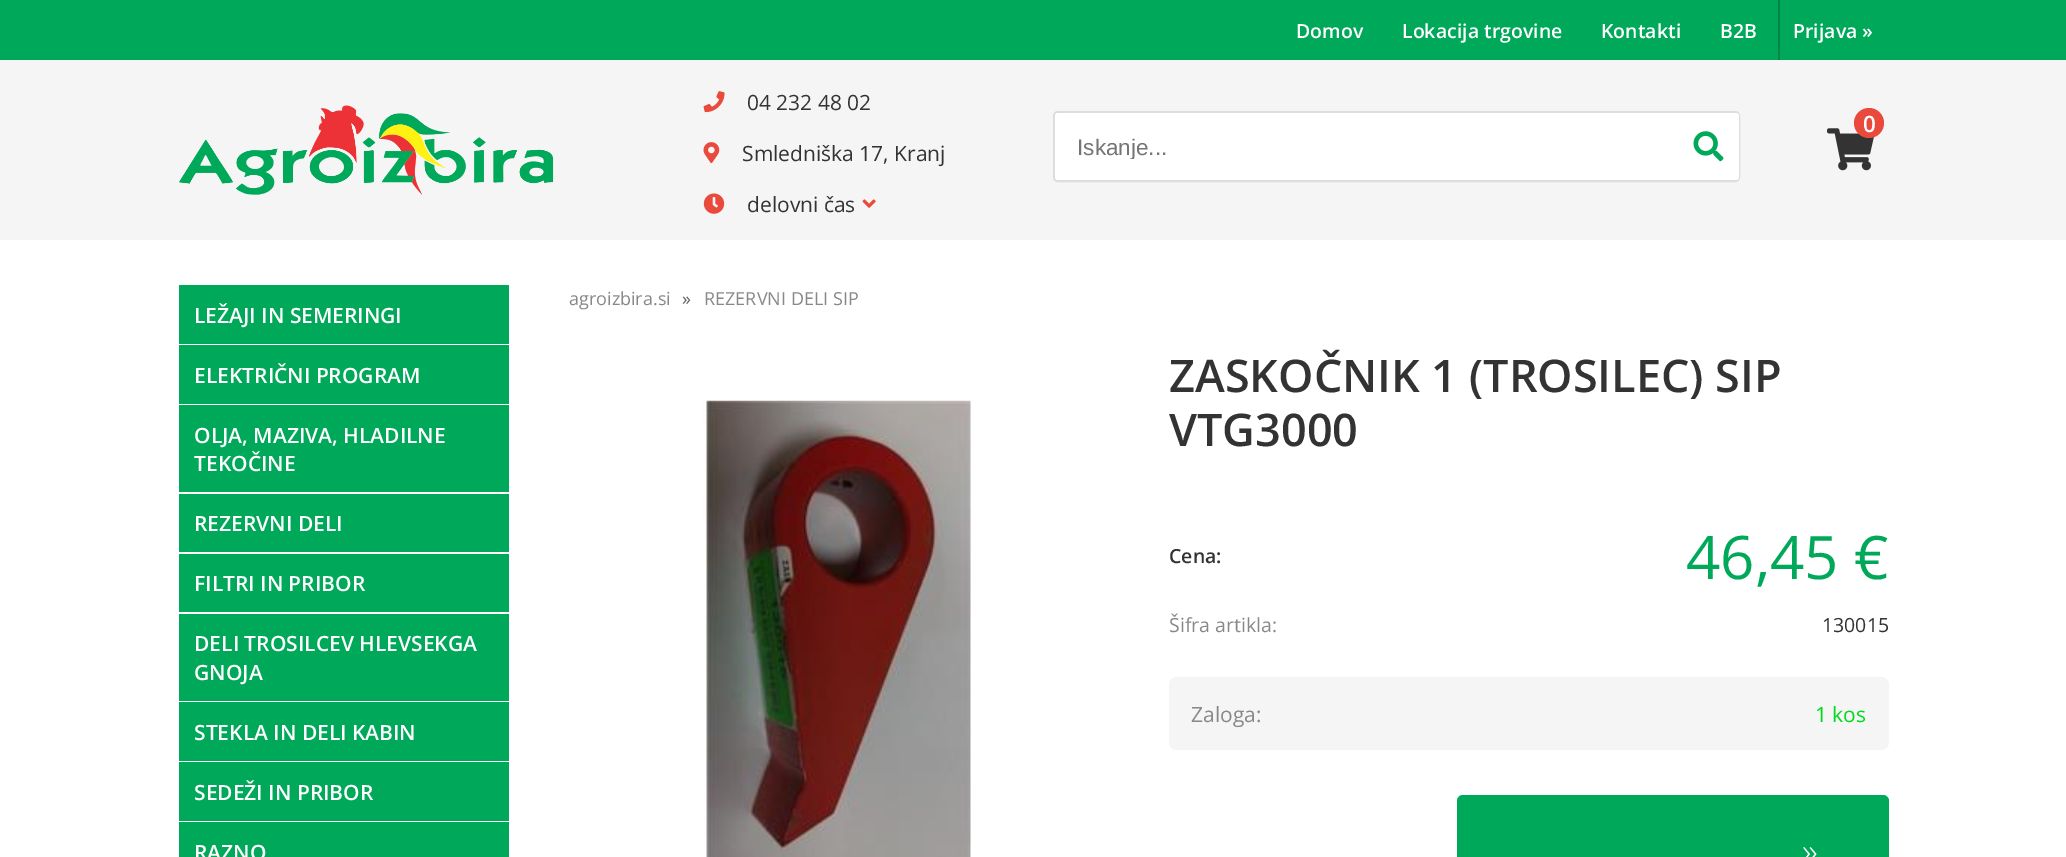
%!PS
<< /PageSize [2066 857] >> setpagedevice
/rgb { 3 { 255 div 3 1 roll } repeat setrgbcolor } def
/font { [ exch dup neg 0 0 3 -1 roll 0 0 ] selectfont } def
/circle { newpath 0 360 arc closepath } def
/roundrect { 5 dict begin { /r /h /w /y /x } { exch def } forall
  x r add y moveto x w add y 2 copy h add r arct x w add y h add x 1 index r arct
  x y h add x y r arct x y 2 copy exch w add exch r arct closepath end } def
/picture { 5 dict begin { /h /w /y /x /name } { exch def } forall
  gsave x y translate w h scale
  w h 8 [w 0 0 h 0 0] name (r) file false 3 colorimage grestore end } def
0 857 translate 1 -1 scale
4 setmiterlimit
255 255 255 rgb
0 0 2066 857 rectfill
[
  [0 60 2066 180 245 245 245]
  [0 0 2066 60 0 168 89]
  [1778 0 2 60 0 134 71]
] { aload pop rgb rectfill } forall
(img/1.rgb) 179 105 375 90 picture
(img/2.rgb) 703 91 22 22 picture
(img/3.rgb) 703 142 17 22 picture
(img/4.rgb) 703 193 22 21 picture
(img/5.rgb) 862 199 14 9 picture
(img/6.rgb) 1827 128 48 43 picture
234 74 60 rgb
1869 123 15 circle fill
221 221 221 rgb
2 setlinewidth
1054 112 685 69 4 roundrect stroke
255 255 255 rgb
1055 113 684 67 3 roundrect fill
(img/7.rgb) 1693 131 31 31 picture
[
  [179 285 330 59 0 168 89]
  [179 345 330 59 0 168 89]
  [179 405 330 87 0 168 89]
  [179 494 330 58 0 168 89]
  [179 554 330 58 0 168 89]
  [179 614 330 87 0 168 89]
  [179 702 330 59 0 168 89]
  [179 762 330 59 0 168 89]
  [179 822 330 35 0 168 89]
] { aload pop rgb rectfill } forall
(img/8.rgb) 703 400 268 457 picture
245 245 245 rgb
1169 677 720 73 8 roundrect fill
0 168 89 rgb
1457 795 432 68 6 roundrect fill
/OpenSans-SemiBold 19.5 font
255 255 255 rgb
[
  [(Domov) 1296 38]
  [(Lokacija trgovine) 1402 38]
  [(Kontakti) 1601 38]
  [(B2B) 1720 38]
  [(Prijava ») 1793 38]
] { aload pop moveto show } forall
/OpenSans-Regular 21 font
51 51 51 rgb
[
  [(04 232 48 02) 747 110]
  [(Smledniška 17, Kranj) 742 161]
  [(delovni čas) 747 212]
] { aload pop moveto show } forall
/OpenSans-SemiBold 22.5 font
255 255 255 rgb
1863 132 moveto (0) show
gsave
1077 134 587 25 rectclip
/LiberationSans-Regular 22.5 font
117 117 117 rgb
1077 155 moveto (Iskanje...) show
grestore
/OpenSans-SemiBold 21 font
[
  [(LEŽAJI IN SEMERINGI) 194 323]
  [(ELEKTRIČNI PROGRAM) 194 383]
  [(OLJA, MAZIVA, HLADILNE) 194 443]
  [(TEKOČINE) 194 471]
  [(REZERVNI DELI) 194 531]
  [(FILTRI IN PRIBOR) 194 591]
  [(DELI TROSILCEV HLEVSEKGA) 194 651]
  [(GNOJA) 194 680]
  [(STEKLA IN DELI KABIN) 194 740]
  [(SEDEŽI IN PRIBOR) 194 800]
  [(RAZNO) 194 860]
] { aload pop moveto show } forall
/OpenSans-Regular 18 font
136 136 136 rgb
569 305 moveto (agroizbira.si) show
96 96 96 rgb
682 305 moveto (») show
136 136 136 rgb
704 305 moveto (REZERVNI DELI SIP) show
/OpenSans-SemiBold 45 font
51 51 51 rgb
1169 392 moveto (ZASKOČNIK 1 \(TROSILEC\) SIP) show
1169 446 moveto (VTG3000) show
/OpenSans-SemiBold 19.5 font
1169 563 moveto (Cena:) show
/OpenSans-Regular 60 font
0 168 89 rgb
1686 579 moveto (46,45 €) show
/OpenSans-Regular 19.5 font
136 136 136 rgb
1169 632 moveto (Šifra artikla:) show
51 51 51 rgb
1822 632 moveto (130015) show
/OpenSans-Regular 21 font
136 136 136 rgb
1191 722 moveto (Zaloga:) show
0 219 29 rgb
1815 722 moveto (1 kos) show
/OpenSans-Light 36 font
255 255 255 rgb
1802 864 moveto (») show
showpage
